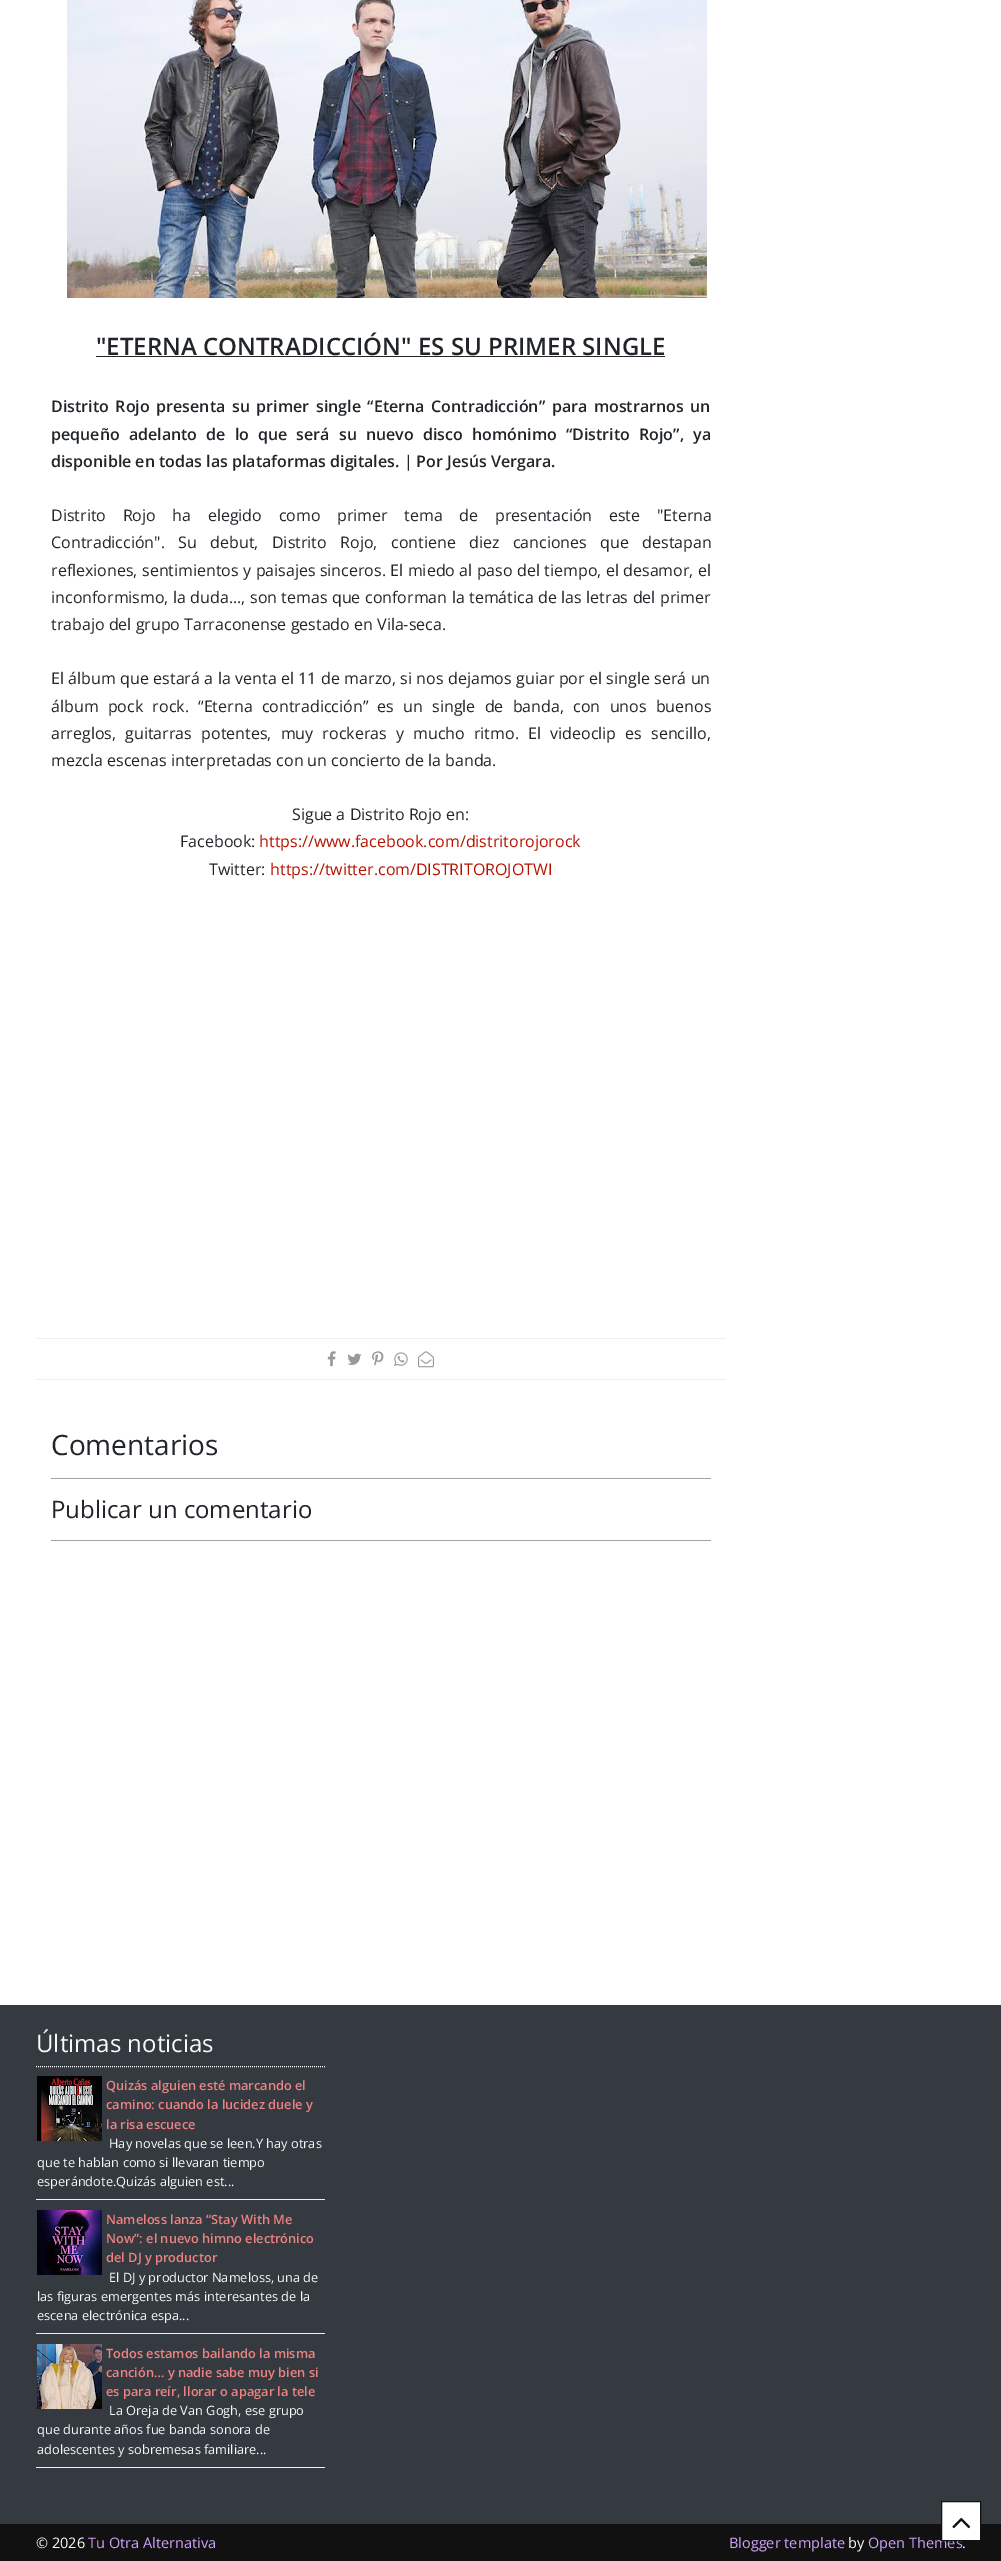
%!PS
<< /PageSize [1001 2561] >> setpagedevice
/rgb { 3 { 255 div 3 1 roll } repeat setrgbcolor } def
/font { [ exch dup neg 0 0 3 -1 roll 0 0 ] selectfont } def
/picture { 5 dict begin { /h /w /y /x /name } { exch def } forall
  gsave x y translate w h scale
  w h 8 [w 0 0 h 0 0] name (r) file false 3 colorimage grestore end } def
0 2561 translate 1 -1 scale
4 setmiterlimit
255 255 255 rgb
0 0 1001 2561 rectfill
(img/1.rgb) 67 0 640 298 picture
[
  [96 356 569 1 33 37 41]
  [36 1338 690 1 238 238 238]
  [36 1379 690 1 238 238 238]
] { aload pop rgb rectfill } forall
(img/2.rgb) 327 1351 9 16 picture
(img/3.rgb) 347 1353 15 12 picture
(img/4.rgb) 372 1351 12 15 picture
(img/5.rgb) 394 1352 14 15 picture
(img/6.rgb) 418 1351 16 17 picture
[
  [51 1478 660 1 162 162 162]
  [51 1540 660 1 162 162 162]
  [0 2005 1001 519 52 58 64]
] { aload pop rgb rectfill } forall
255 255 255 rgb
[1 1] 0 setdash
36 2066.5 moveto 325 2066.5 lineto stroke
238 238 238 rgb
36 2199 289 1 rectfill
(img/7.rgb) 37 2076 65 65 picture
36 2333 289 1 rectfill
(img/8.rgb) 37 2210 65 65 picture
36 2467 289 1 rectfill
(img/9.rgb) 37 2344 65 65 picture
17 17 17 rgb
0 2524 1001 37 rectfill
/OpenSans-SemiBold 24 font
33 37 41 rgb
96 355 moveto ("ETERNA CONTRADICCIÓN" ES SU PRIMER SINGLE) show
/OpenSans-SemiBold 16 font
51 412 moveto 2.5 0 32 (Distrito Rojo presenta su primer single “Eterna Contradicción” para mostrarnos un) widthshow
51 440 moveto 5 0 32 (pequeño adelanto de lo que será su nuevo disco homónimo “Distrito Rojo”, ya) widthshow
51 467 moveto (disponible en todas las plataformas digitales. | Por Jesús Vergara.) show
/OpenSans-Regular 16 font
51 521 moveto 12.5 0 32 (Distrito Rojo ha elegido como primer tema de presentación este "Eterna) widthshow
51 548 moveto 9.25 0 32 (Contradicción". Su debut, Distrito Rojo, contiene diez canciones que destapan) widthshow
51 576 moveto 0.25 0 32 (reflexiones, sentimientos y paisajes sinceros. El miedo al paso del tiempo, el desamor, el) widthshow
51 603 moveto 0.3 0 32 (inconformismo, la duda..., son temas que conforman la temática de las letras del primer) widthshow
51 630 moveto (trabajo del grupo Tarraconense gestado en Vila-seca.) show
51 684 moveto 0.3 0 32 (El álbum que estará a la venta el 11 de marzo, si nos dejamos guiar por el single será un) widthshow
51 712 moveto 5.1 0 32 (álbum pock rock. “Eterna contradicción” es un single de banda, con unos buenos) widthshow
51 739 moveto 5 0 32 (arreglos, guitarras potentes, muy rockeras y mucho ritmo. El videoclip es sencillo,) widthshow
[
  [(mezcla escenas interpretadas con un concierto de la banda.) 51 766]
  [(Sigue a Distrito Rojo en:) 292 820]
  [(Facebook:) 180 847]
] { aload pop moveto show } forall
181 18 0 rgb
259 847 moveto (https://www.facebook.com/distritorojorock) show
33 37 41 rgb
209 875 moveto (Twitter:) show
181 18 0 rgb
270 875 moveto (https://twitter.com/DISTRITOROJOTWI) show
/OpenSans-Regular 28 font
33 37 41 rgb
51 1455 moveto (Comentarios) show
/OpenSans-Regular 24 font
51 1518 moveto (Publicar un comentario) show
248 249 250 rgb
36 2052 moveto (Últimas noticias) show
/OpenSans-SemiBold 12.8 font
236 130 130 rgb
[
  [(Quizás alguien esté marcando el) 106 2090]
  [(camino: cuando la lucidez duele y) 106 2109]
  [(la risa escuece) 106 2129]
] { aload pop moveto show } forall
/OpenSans-Regular 12.8 font
248 249 250 rgb
[
  [(Hay novelas que se leen.Y hay otras) 109 2148]
  [(que te hablan como si llevaran tiempo) 37 2167]
  [(esperándote.Quizás alguien est...) 37 2186]
] { aload pop moveto show } forall
/OpenSans-SemiBold 12.8 font
236 130 130 rgb
[
  [(Nameloss lanza “Stay With Me) 106 2224]
  [(Now”: el nuevo himno electrónico) 106 2243]
  [(del DJ y productor) 106 2262]
] { aload pop moveto show } forall
/OpenSans-Regular 12.8 font
248 249 250 rgb
[
  [(El DJ y productor Nameloss, una de) 109 2282]
  [(las figuras emergentes más interesantes de la) 37 2301]
  [(escena electrónica espa...) 37 2320]
] { aload pop moveto show } forall
/OpenSans-SemiBold 12.8 font
236 130 130 rgb
[
  [(Todos estamos bailando la misma) 106 2358]
  [(canción… y nadie sabe muy bien si) 106 2377]
  [(es para reír, llorar o apagar la tele) 106 2396]
] { aload pop moveto show } forall
/OpenSans-Regular 12.8 font
248 249 250 rgb
[
  [(La Oreja de Van Gogh, ese grupo) 109 2415]
  [(que durante años fue banda sonora de) 37 2434]
  [(adolescentes y sobremesas familiare...) 37 2454]
] { aload pop moveto show } forall
/OpenSans-Regular 14.5 font
36 2548 moveto (© 2026) show
207 162 251 rgb
88 2548 moveto (Tu Otra Alternativa) show
729 2548 moveto (Blogger template) show
248 249 250 rgb
848 2548 moveto (by) show
207 162 251 rgb
868 2548 moveto (Open Themes) show
255 255 255 rgb
941.5 2501.5 moveto 980.5 2501.5 lineto 980.5 2540.5 lineto 941.5 2540.5 lineto closepath gsave fill grestore
17 17 17 rgb
[] 0 setdash
stroke
(img/10.rgb) 952 2517 19 12 picture
248 249 250 rgb
962 2548 moveto (.) show
showpage
